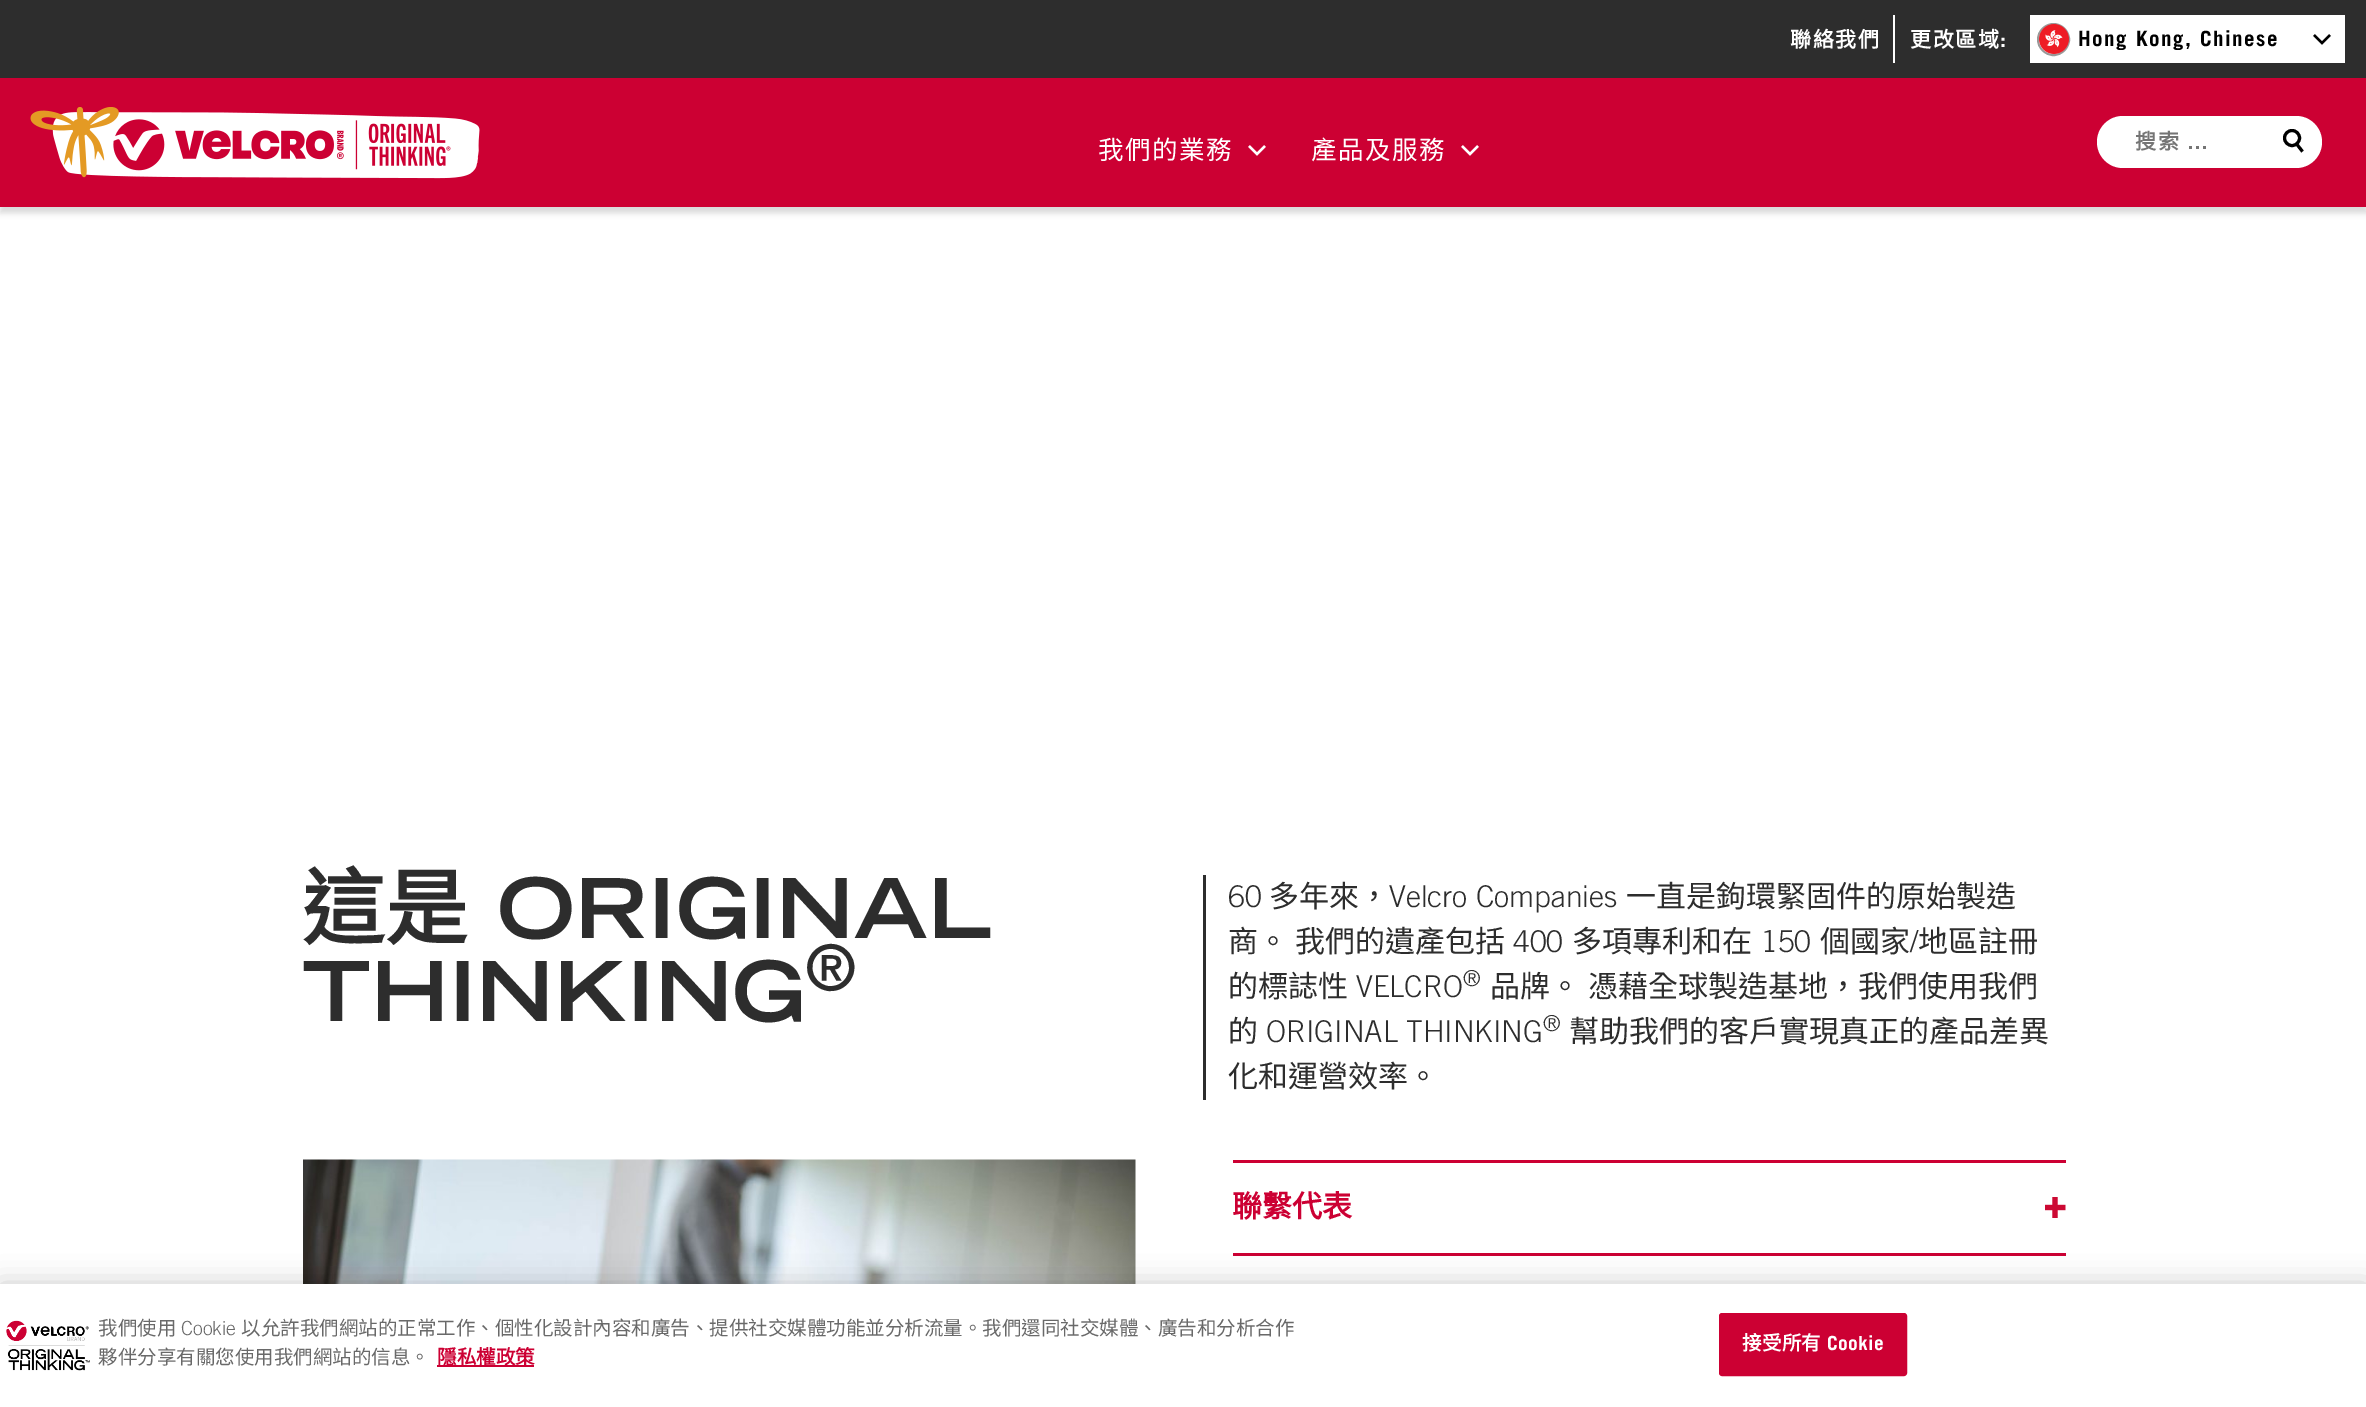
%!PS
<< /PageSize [2366 1407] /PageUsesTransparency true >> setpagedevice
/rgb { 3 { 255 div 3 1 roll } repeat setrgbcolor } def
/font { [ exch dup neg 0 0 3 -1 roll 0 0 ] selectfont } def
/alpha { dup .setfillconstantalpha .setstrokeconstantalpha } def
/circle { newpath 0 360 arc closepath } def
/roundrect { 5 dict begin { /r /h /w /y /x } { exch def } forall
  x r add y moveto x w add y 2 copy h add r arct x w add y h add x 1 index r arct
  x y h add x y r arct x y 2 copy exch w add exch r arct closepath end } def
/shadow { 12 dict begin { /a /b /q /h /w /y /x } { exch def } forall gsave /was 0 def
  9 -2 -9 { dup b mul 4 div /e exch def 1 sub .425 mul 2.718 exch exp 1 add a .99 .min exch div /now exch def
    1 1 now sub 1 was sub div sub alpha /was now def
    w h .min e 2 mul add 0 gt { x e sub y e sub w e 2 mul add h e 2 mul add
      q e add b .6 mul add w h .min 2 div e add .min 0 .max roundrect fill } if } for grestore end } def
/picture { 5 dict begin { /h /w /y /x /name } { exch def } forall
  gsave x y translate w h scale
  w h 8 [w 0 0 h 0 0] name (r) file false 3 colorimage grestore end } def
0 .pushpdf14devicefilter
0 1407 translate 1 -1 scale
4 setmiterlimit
255 255 255 rgb
0 0 2366 1407 rectfill
0 0 0 rgb
0 6 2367 207 0 3 0.15 shadow
[
  [0 78 2366 129 204 0 51]
  [0 0 2366 78 45 45 45]
  [1893 15 2 48 255 255 255]
  [2030 15 315 48 255 255 255]
] { aload pop rgb rectfill } forall
153 153 153 rgb
2 setlinewidth
2053.5 39.5 15.5 circle stroke
(img/1.rgb) 2039 24 30 30 picture
0 0 0 rgb
2.3 setlinewidth
2330 35 moveto 2322 43 lineto 2314 35 lineto stroke
(img/2.rgb) 30 107 450 72 picture
255 255 255 rgb
1265 146 moveto 1257 154 lineto 1249 146 lineto stroke
1478 146 moveto 1470 154 lineto 1462 146 lineto stroke
2097 116 225 52 26 roundrect fill
0 0 0 rgb
3 setlinewidth
2292 138 7.5 circle stroke
2297 144.5 moveto 2302.5 151.5 lineto stroke
45 45 45 rgb
1203 875 3 225 rectfill
(img/3.rgb) 303 1159 833 125 picture
204 0 51 rgb
1233 1160 833 3 rectfill
1233 1253 833 3 rectfill
(img/4.rgb) 2045 1197 21 21 picture
0 0 0 rgb
0 1284 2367 123 0 13.5 0.2 shadow
255 255 255 rgb
0 1284 2366 123 rectfill
(img/5.rgb) 6 1320 84 51 picture
204 0 51 rgb
437 1365 97 2 rectfill
1720 1314 186 61 2 roundrect gsave fill grestore
2 setlinewidth
stroke
/NotoSansCJKHK-Bold 21 font
255 255 255 rgb
1790 47 moveto 1.5 0 (聯絡我們) ashow
1910 47 moveto 1.5 0 (更改區域) ashow
/TradeGothic-Bold 21 font
2000 47 moveto 1.5 0 (:) ashow
0 0 0 rgb
2078 46 moveto 1.5 0 (Hong Kong, Chinese) ashow
/NotoSansCJKHK-Regular 25.5 font
255 255 255 rgb
1098 159 moveto 1.5 0 (我們的業務) ashow
1311 159 moveto 1.5 0 (產品及服務) ashow
/NotoSansCJKHK-Bold 21 font
117 117 117 rgb
2135 149 moveto 1.5 0 (搜索) ashow
/TradeGothic-Bold 21 font
2187 149 moveto 1.5 0 (…) ashow
/NotoSansCJKHK-Bold 82.5 font
45 45 45 rgb
302 938 moveto (這是) show
/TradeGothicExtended-Bold 82.5 font
497 938 moveto (ORIGINAL) show
302 1021 moveto (THINKING) show
/TradeGothicExtended-Bold 62 font
806 990 moveto (®) show
/TradeGothic-Light 30 font
1228 907 moveto (60) show
/NotoSansCJKHK-Regular 30 font
1269 907 moveto (多年來，) show
/TradeGothic-Light 30 font
1389 907 moveto (Velcro Companies) show
/NotoSansCJKHK-Regular 30 font
1626 907 moveto (一直是鉤環緊固件的原始製造) show
1228 952 moveto (商。 我們的遺產包括) show
/TradeGothic-Light 30 font
1513 952 moveto (400) show
/NotoSansCJKHK-Regular 30 font
1572 952 moveto (多項專利和在) show
/TradeGothic-Light 30 font
1761 952 moveto (150) show
/NotoSansCJKHK-Regular 30 font
1820 952 moveto (個國家) show
/TradeGothic-Light 30 font
1910 952 moveto (/) show
/NotoSansCJKHK-Regular 30 font
1918 952 moveto (地區註冊) show
1228 997 moveto (的標誌性) show
/TradeGothic-Light 30 font
1356 997 moveto (VELCRO) show
/TradeGothic-Light 22 font
1463 986 moveto (®) show
/NotoSansCJKHK-Regular 30 font
1490 997 moveto 1 0 32 (品牌。 憑藉全球製造基地，我們使用我們) widthshow
1228 1042 moveto (的) show
/TradeGothic-Light 30 font
1266 1042 moveto (ORIGINAL THINKING) show
/TradeGothic-Light 22 font
1543 1031 moveto (®) show
/NotoSansCJKHK-Regular 30 font
1569 1042 moveto (幫助我們的客戶實現真正的產品差異) show
1228 1087 moveto (化和運營效率。) show
/NotoSansCJKHK-Bold 30 font
204 0 51 rgb
1232 1217 moveto (聯繫代表) show
/NotoSansCJKHK-Regular 19.5 font
105 105 105 rgb
98 1335 moveto (我們使用) show
/TradeGothic-Light 19.5 font
181 1335 moveto (Cookie) show
/NotoSansCJKHK-Regular 19.5 font
241 1335 moveto (以允許我們網站的正常工作、個性化設計內容和廣告、提供社交媒體功能並分析流量。我們還同社交媒體、廣告和分析合作) show
98 1364 moveto (夥伴分享有關您使用我們網站的信息。) show
/NotoSansCJKHK-Bold 19.5 font
204 0 51 rgb
437 1364 moveto (隱私權政策) show
255 255 255 rgb
1742 1350 moveto 0.25 0 (接受所有) ashow
/TradeGothic-Bold 19.5 font
1827 1350 moveto 0.25 0 (Cookie) ashow
.poppdf14devicefilter showpage
